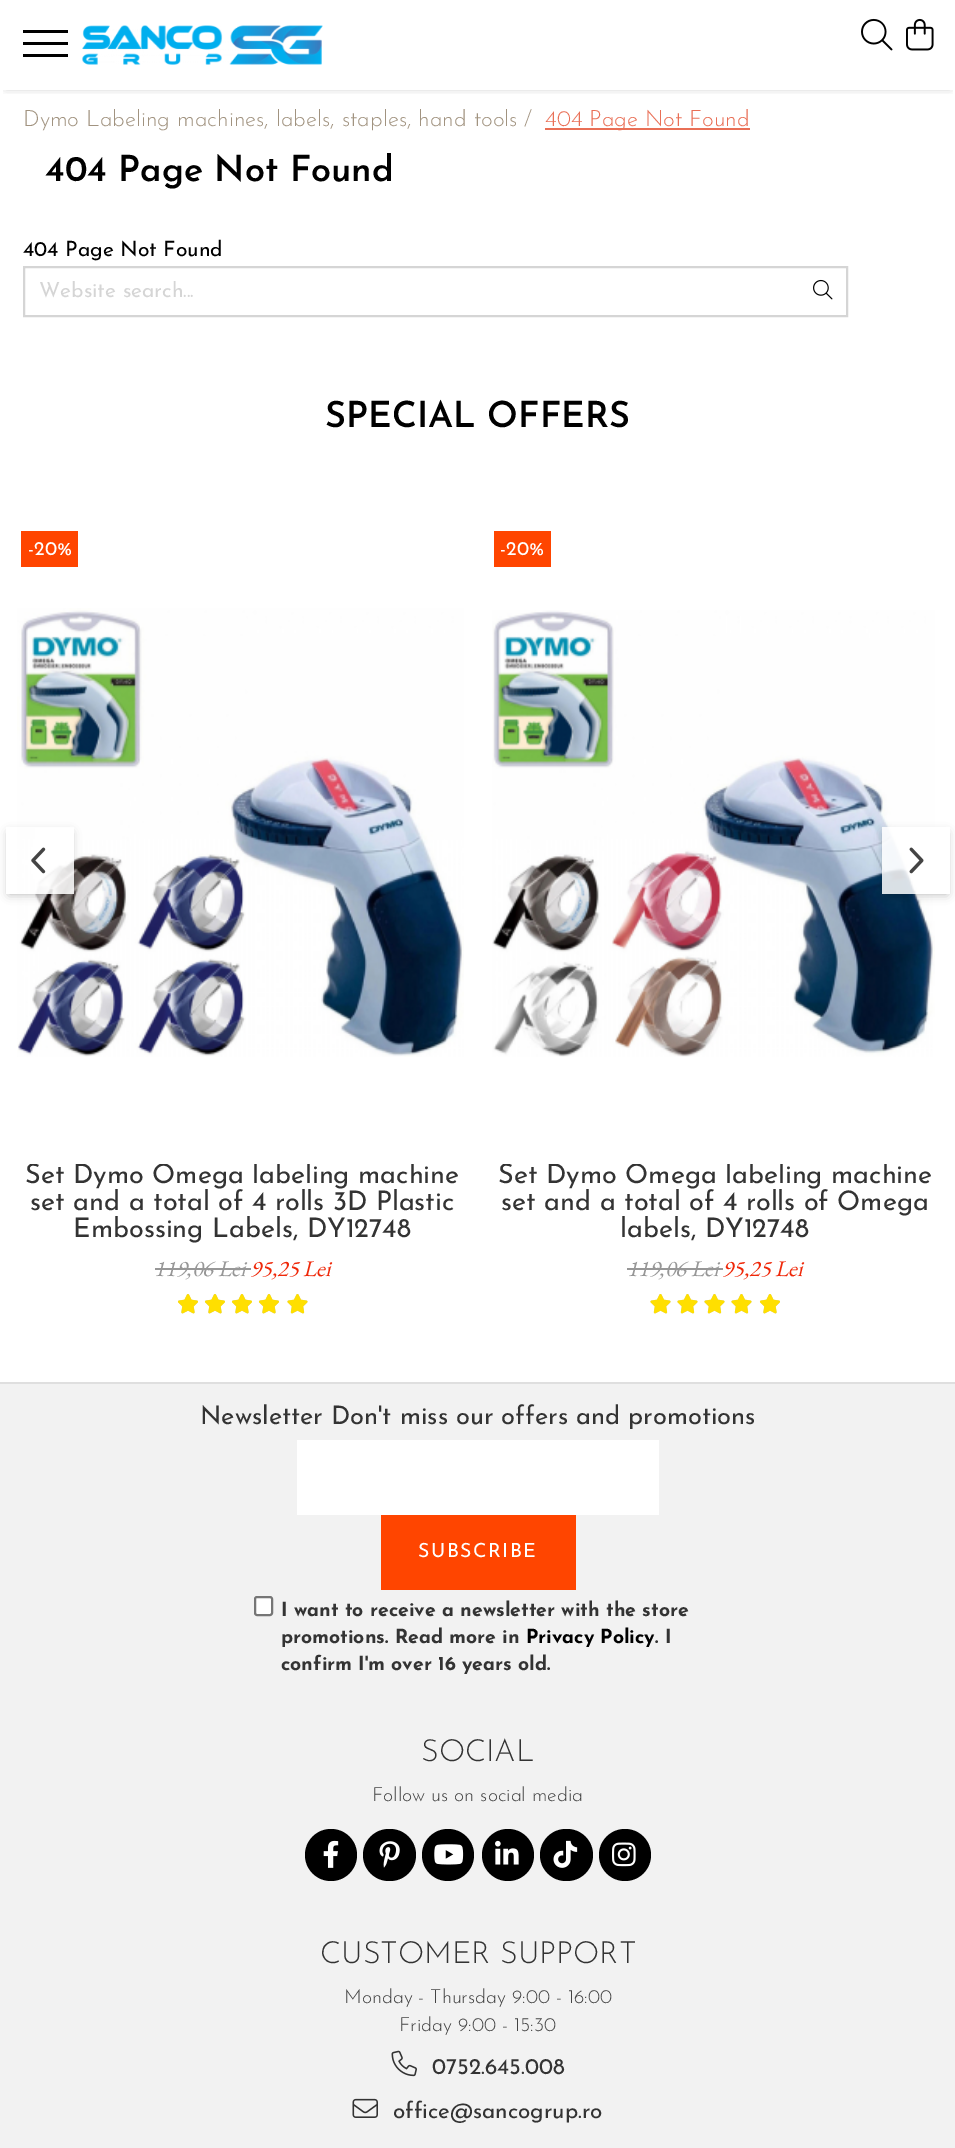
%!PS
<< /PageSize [955 2148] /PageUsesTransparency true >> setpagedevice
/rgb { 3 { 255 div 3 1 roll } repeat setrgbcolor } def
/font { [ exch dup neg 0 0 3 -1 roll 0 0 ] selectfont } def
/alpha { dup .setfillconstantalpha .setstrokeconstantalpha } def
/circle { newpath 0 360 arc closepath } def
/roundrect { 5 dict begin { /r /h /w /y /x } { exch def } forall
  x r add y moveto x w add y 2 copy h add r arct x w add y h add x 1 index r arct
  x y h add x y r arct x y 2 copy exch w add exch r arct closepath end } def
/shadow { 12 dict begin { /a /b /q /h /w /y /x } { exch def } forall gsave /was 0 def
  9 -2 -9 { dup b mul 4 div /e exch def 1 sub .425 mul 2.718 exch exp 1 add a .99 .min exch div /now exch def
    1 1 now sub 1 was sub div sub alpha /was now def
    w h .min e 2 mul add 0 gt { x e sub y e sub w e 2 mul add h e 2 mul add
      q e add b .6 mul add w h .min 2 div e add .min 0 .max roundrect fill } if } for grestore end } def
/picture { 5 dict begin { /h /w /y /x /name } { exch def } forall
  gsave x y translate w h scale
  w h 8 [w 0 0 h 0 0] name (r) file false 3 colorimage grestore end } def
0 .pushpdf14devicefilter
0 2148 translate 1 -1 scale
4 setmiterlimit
255 255 255 rgb
0 0 955 2148 rectfill
gsave
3 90 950 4 rectclip
0 0 0 rgb
6 9 944 78 0 5 0.3 shadow
grestore
[
  [23 42 45 3 0 0 0]
  [23 30 45 3 0 0 0]
  [23 54 45 3 0 0 0]
] { aload pop rgb rectfill } forall
(img/1.rgb) 82 25 241 40 picture
(img/2.rgb) 861 18 32 33 picture
(img/3.rgb) 906 18 28 33 picture
233 111 86 rgb
545 128 205 2 rectfill
213 213 213 rgb
2 setlinewidth
24 267 823 49 rectstroke
(img/4.rgb) 813 279 20 21 picture
255 69 0 rgb
21 531 57 36 rectfill
(img/5.rgb) 17 608 447 449 picture
151 151 151 rgb
155 1268 96 2 rectfill
(img/8.rgb) 178 1294 20 20 picture
(img/6.rgb) 177 1294 21 20 picture
(img/8.rgb) 205 1294 20 20 picture
(img/6.rgb) 204 1294 21 20 picture
(img/8.rgb) 232 1294 20 20 picture
(img/6.rgb) 231 1294 21 20 picture
(img/8.rgb) 259 1294 20 20 picture
(img/6.rgb) 258 1294 21 20 picture
(img/9.rgb) 287 1294 21 20 picture
(img/7.rgb) 287 1294 21 20 picture
255 69 0 rgb
494 531 57 36 rectfill
(img/10.rgb) 492 610 443 447 picture
151 151 151 rgb
627 1268 96 2 rectfill
(img/9.rgb) 650 1294 21 20 picture
(img/7.rgb) 650 1294 21 20 picture
(img/9.rgb) 677 1294 21 20 picture
(img/7.rgb) 677 1294 21 20 picture
(img/9.rgb) 704 1294 21 20 picture
(img/7.rgb) 704 1294 21 20 picture
(img/9.rgb) 731 1294 21 20 picture
(img/7.rgb) 731 1294 21 20 picture
(img/8.rgb) 760 1294 20 20 picture
(img/6.rgb) 759 1294 21 20 picture
gsave
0 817 moveto 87 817 lineto 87 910 lineto 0 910 lineto closepath 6 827 moveto 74 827 lineto 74 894 lineto 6 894 lineto closepath eoclip newpath
0 0 0 rgb
9 833 62 61 0 5 0.3 shadow
grestore
0.85 alpha
255 255 255 rgb
35 828 39 66 rectfill
1 alpha
(img/11.rgb) 31 847 15 27 picture
gsave
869 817 moveto 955 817 lineto 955 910 lineto 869 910 lineto closepath 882 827 moveto 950 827 lineto 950 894 lineto 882 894 lineto closepath eoclip newpath
0 0 0 rgb
885 833 62 61 0 5 0.3 shadow
grestore
0.85 alpha
882 827 68 67 rectfill
1 alpha
(img/12.rgb) 909 847 15 27 picture
[
  [0 1384 955 764 242 242 242]
  [0 1382 955 2 223 223 223]
  [297 1440 362 75 255 255 255]
  [381 1515 195 75 255 69 0]
] { aload pop rgb rectfill } forall
255 255 255 rgb
255 1597 17 18 2 roundrect gsave fill grestore
118 118 118 rgb
stroke
0 0 0 rgb
331 1855 26 circle fill
(img/13.rgb) 323 1840 16 28 picture
363 1829 53 52 26 roundrect fill
(img/14.rgb) 379 1841 21 27 picture
448 1855 26 circle fill
(img/15.rgb) 434 1844 30 21 picture
508 1855 26 circle fill
(img/16.rgb) 495 1840 24 25 picture
540 1829 53 52 26 roundrect fill
(img/17.rgb) 553 1840 25 28 picture
625 1855 26 circle fill
(img/18.rgb) 612 1842 24 25 picture
(img/19.rgb) 391 2050 26 27 picture
(img/20.rgb) 352 2098 26 20 picture
/JosefinSans-Light 22.5 font
161 147 128 rgb
23 126 moveto (Dymo Labeling machines, labels, staples, hand tools /) show
233 111 86 rgb
545 126 moveto (404 Page Not Found) show
/JosefinSans-SemiBold 36 font
0 0 0 rgb
45 181 moveto (404 Page Not Found) show
/JosefinSans-Regular 21 font
23 256 moveto (404 Page Not Found) show
gsave
39 281 804 22 rectclip
213 213 213 rgb
39 297 moveto (Website search...) show
grestore
/JosefinSans-SemiBold 36 font
325 427 moveto (SPECIAL OFFERS) show
/JosefinSans-Regular 19.5 font
255 255 255 rgb
28 555 moveto (-20%) show
gsave
9 1164 467 81 rectclip
/JosefinSans-Regular 27 font
51 51 51 rgb
25 1183 moveto (Set Dymo Omega labeling machine) show
grestore
/JosefinSans-Regular 27 font
51 51 51 rgb
30 1210 moveto (set and a total of 4 rolls 3D Plastic) show
73 1237 moveto (Embossing Labels, DY12748) show
/EBGaramond-Italic 22.5 font
151 151 151 rgb
154 1276 moveto (119,06 Lei) show
239 40 9 rgb
250 1276 moveto (95,25 Lei) show
/JosefinSans-Regular 19.5 font
255 255 255 rgb
500 555 moveto (-20%) show
gsave
482 1164 466 81 rectclip
/JosefinSans-Regular 27 font
51 51 51 rgb
498 1183 moveto (Set Dymo Omega labeling machine) show
grestore
/JosefinSans-Regular 27 font
51 51 51 rgb
501 1210 moveto (set and a total of 4 rolls of Omega) show
620 1237 moveto (labels, DY12748) show
/EBGaramond-Italic 22.5 font
151 151 151 rgb
627 1276 moveto (119,06 Lei) show
239 40 9 rgb
722 1276 moveto (95,25 Lei) show
/JosefinSans-Regular 25.5 font
51 51 51 rgb
200 1424 moveto (Newsletter Don't miss our offers and promotions) show
/JosefinSans-Regular 19.5 font
255 255 255 rgb
418 1557 moveto 1.5 0 (SUBSCRIBE) ashow
/JosefinSans-Bold 19.5 font
51 51 51 rgb
281 1616 moveto (I want to receive a newsletter with the store) show
281 1643 moveto (promotions. Read more in) show
0 0 0 rgb
526 1643 moveto (Privacy Policy) show
51 51 51 rgb
655 1643 moveto (. I) show
281 1670 moveto (confirm I'm over 16 years old.) show
/JosefinSans-Light 30.5 font
421 1761 moveto (SOCIAL) show
/JosefinSans-Light 19.5 font
68 68 68 rgb
372 1801 moveto (Follow us on social media) show
/JosefinSans-Light 30.5 font
51 51 51 rgb
320 1963 moveto (CUSTOMER SUPPORT) show
/JosefinSans-Light 19.5 font
68 68 68 rgb
344 2003 moveto (Monday - Thursday 9:00 - 16:00) show
399 2031 moveto (Friday 9:00 - 15:30) show
/JosefinSans-Regular 22.5 font
51 51 51 rgb
432 2074 moveto (0752.645.008) show
393 2118 moveto (office@sancogrup.ro) show
.poppdf14devicefilter showpage
